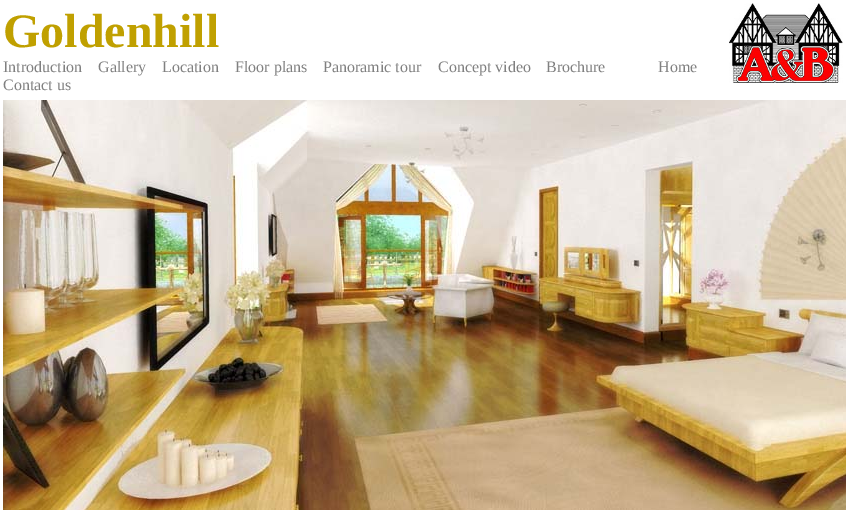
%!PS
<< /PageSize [846 510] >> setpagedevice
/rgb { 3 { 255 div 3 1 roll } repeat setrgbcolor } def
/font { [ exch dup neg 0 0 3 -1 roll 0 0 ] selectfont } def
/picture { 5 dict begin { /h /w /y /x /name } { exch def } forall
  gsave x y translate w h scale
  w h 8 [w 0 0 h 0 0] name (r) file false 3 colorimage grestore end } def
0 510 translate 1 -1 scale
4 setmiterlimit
255 255 255 rgb
0 0 846 510 rectfill
(img/1.rgb) 729 3 114 80 picture
(img/2.rgb) 3 100 843 410 picture
/LiberationSerif-Bold 48 font
192 160 0 rgb
3 47 moveto (Goldenhill) show
/LiberationSerif-Regular 16 font
128 128 128 rgb
[
  [(Introduction) 3 72]
  [(Gallery) 98 72]
  [(Location) 162 72]
  [(Floor plans) 235 72]
  [(Panoramic tour) 323 72]
  [(Concept video) 438 72]
  [(Brochure) 546 72]
  [(Home) 658 72]
  [(Contact us) 3 90]
] { aload pop moveto show } forall
showpage
